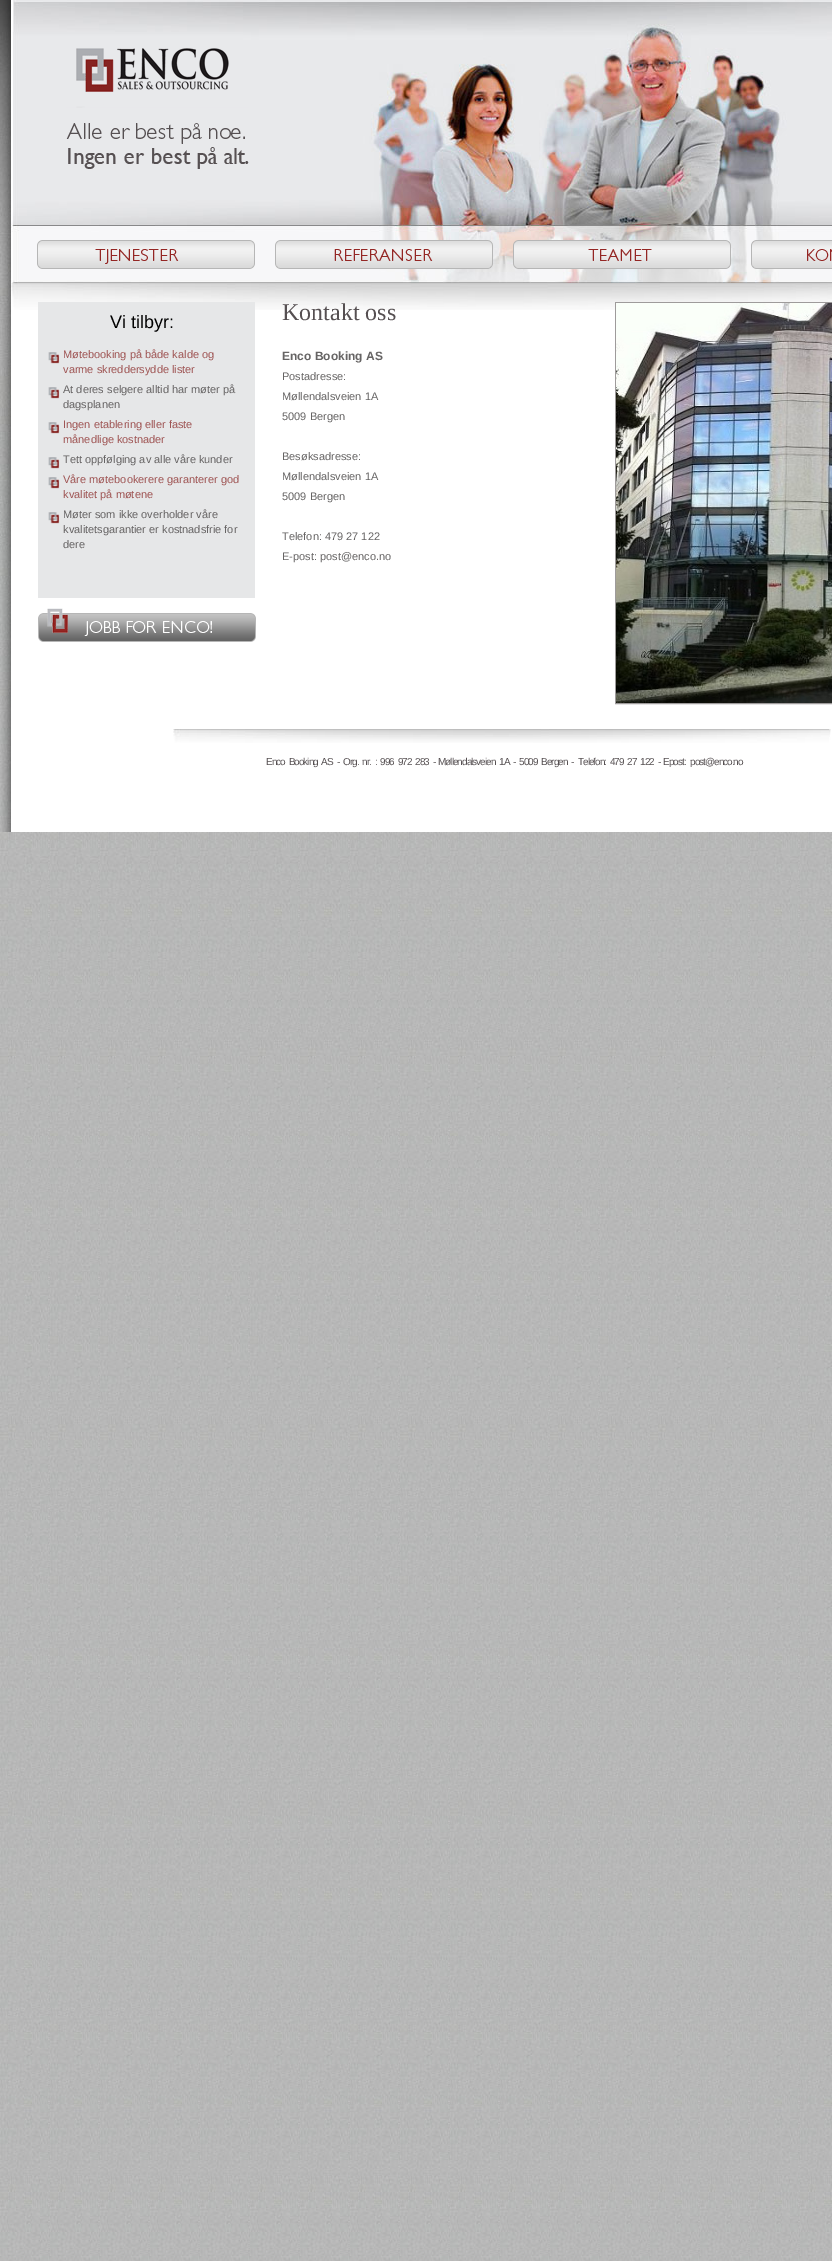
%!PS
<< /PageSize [832 2261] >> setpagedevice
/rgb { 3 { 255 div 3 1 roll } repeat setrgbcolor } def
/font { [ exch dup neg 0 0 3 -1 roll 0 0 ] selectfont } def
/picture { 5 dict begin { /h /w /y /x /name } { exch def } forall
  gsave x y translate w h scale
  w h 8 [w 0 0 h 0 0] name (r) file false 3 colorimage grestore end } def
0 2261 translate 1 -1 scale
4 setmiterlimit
255 255 255 rgb
0 0 832 2261 rectfill
(img/1.rgb) 0 0 832 2261 picture
(img/2.rgb) 0 0 832 832 picture
(img/3.rgb) 11 0 821 283 picture
(img/4.rgb) 37 240 218 29 picture
(img/5.rgb) 275 240 218 29 picture
(img/6.rgb) 513 240 218 29 picture
(img/7.rgb) 751 240 81 29 picture
(img/8.rgb) 66 48 183 121 picture
(img/9.rgb) 11 283 821 27 picture
230 231 232 rgb
38 302 217 296 rectfill
(img/10.rgb) 48 352 12 12 picture
(img/10.rgb) 48 387 12 12 picture
(img/10.rgb) 48 422 12 12 picture
(img/10.rgb) 48 457 12 12 picture
(img/10.rgb) 48 477 12 12 picture
(img/10.rgb) 48 512 12 12 picture
(img/11.rgb) 38 608 218 34 picture
158 155 155 rgb
615.5 302.5 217 401 rectstroke
(img/12.rgb) 616 303 216 400 picture
(img/13.rgb) 173 729 658 14 picture
/LiberationSans-Regular 18 font
0 0 0 rgb
110 328 moveto (Vi tilbyr:) show
/LiberationSans-Regular 11 font
159 85 84 rgb
63 358 moveto (Møtebooking på både kalde og) show
63 373 moveto (varme skreddersydde lister) show
102 100 100 rgb
63 393 moveto (At deres selgere alltid har møter på) show
63 408 moveto (dagsplanen) show
159 85 84 rgb
63 428 moveto (Ingen etablering eller faste) show
63 443 moveto (månedlige kostnader) show
102 100 100 rgb
63 463 moveto (Tett oppfølging av alle våre kunder) show
159 85 84 rgb
63 483 moveto (Våre møtebookerere garanterer god) show
63 498 moveto (kvalitet på møtene) show
102 100 100 rgb
[
  [(Møter som ikke overholder våre) 63 518]
  [(kvalitetsgarantier er kostnadsfrie for) 63 533]
  [(dere) 63 548]
] { aload pop moveto show } forall
/LiberationSerif-Regular 24 font
86 80 82 rgb
282 320 moveto (Kontakt oss) show
/LiberationSans-Bold 12 font
102 100 100 rgb
282 360 moveto (Enco Booking AS) show
/LiberationSans-Regular 11 font
[
  [(Postadresse:) 282 380]
  [(Møllendalsveien 1A) 282 400]
  [(5009 Bergen) 282 420]
  [(Besøksadresse:) 282 460]
  [(Møllendalsveien 1A) 282 480]
  [(5009 Bergen) 282 500]
  [(Telefon: 479 27 122) 282 540]
  [(E-post: post@enco.no) 282 560]
] { aload pop moveto show } forall
/LiberationSans-Regular 10 font
86 80 82 rgb
266 765 moveto 2 0 32 -1 0 (Enco Booking AS -) awidthshow
343 765 moveto 2 0 32 -1 0 (Org. nr. : 996 972 283 -) awidthshow
438 765 moveto 2 0 32 -1 0 (Møllendalsveien 1A -) awidthshow
519 765 moveto 2 0 32 -1 0 (5009 Bergen -) awidthshow
578 765 moveto 2 0 32 -1 0 (Telefon: 479 27 122 -) awidthshow
663 765 moveto -1 0 (Epost:) ashow
690 765 moveto -1 0 (post@enco.no) ashow
showpage
